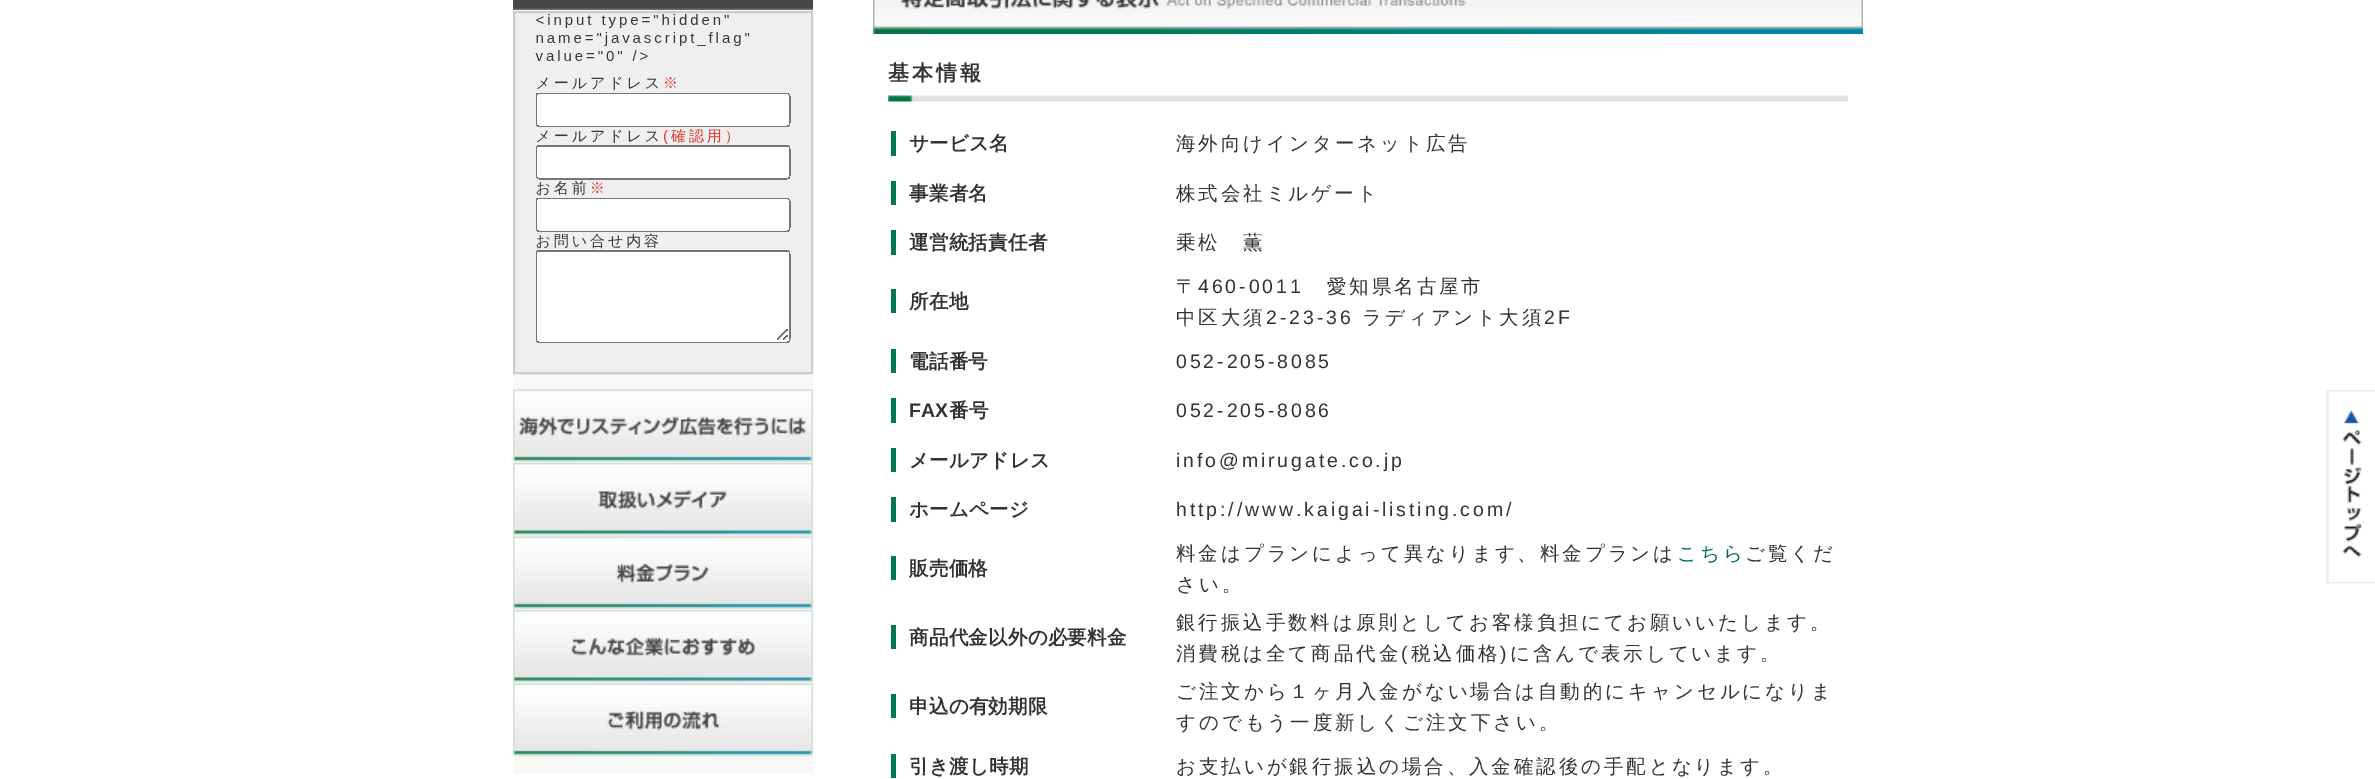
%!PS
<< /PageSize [2375 779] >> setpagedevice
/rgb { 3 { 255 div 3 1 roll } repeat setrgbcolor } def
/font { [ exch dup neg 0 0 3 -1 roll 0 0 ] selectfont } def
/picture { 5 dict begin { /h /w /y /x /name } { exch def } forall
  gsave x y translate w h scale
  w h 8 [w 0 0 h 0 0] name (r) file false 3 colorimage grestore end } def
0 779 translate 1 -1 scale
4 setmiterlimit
255 255 255 rgb
0 0 2375 779 rectfill
248 248 247 rgb
513 10 300 764 rectfill
(img/1.rgb) 513 0 300 10 picture
239 239 239 rgb
514 12 moveto 812 12 lineto 812 373 lineto 514 373 lineto closepath gsave fill grestore
204 204 204 rgb
2 setlinewidth
stroke
(img/2.rgb) 535 14 256 329 picture
(img/3.rgb) 513 389 300 74 picture
(img/4.rgb) 513 463 300 74 picture
(img/5.rgb) 513 536 300 74 picture
(img/6.rgb) 513 610 300 74 picture
(img/7.rgb) 513 683 300 74 picture
(img/8.rgb) 873 0 990 34 picture
(img/9.rgb) 888 95 960 7 picture
[
  [891 131 5 25 0 121 78]
  [891 181 5 24 0 121 78]
  [891 230 5 25 0 121 78]
  [891 289 5 24 0 121 78]
  [891 349 5 24 0 121 78]
  [891 398 5 25 0 121 78]
  [891 448 5 24 0 121 78]
  [891 497 5 25 0 121 78]
  [891 556 5 24 0 121 78]
  [891 625 5 24 0 121 78]
  [891 694 5 24 0 121 78]
  [891 754 5 24 0 121 78]
] { aload pop rgb rectfill } forall
(img/10.rgb) 2326 390 49 194 picture
/WenQuanYiZenHei-Bold 21 font
51 51 51 rgb
888 80 moveto 2.9 0 (基本情報) ashow
/WenQuanYiZenHei-Bold 19.5 font
909 150 moveto 0.25 0 (サービス名) ashow
/WenQuanYiZenHei-Medium 19.5 font
1176 150 moveto 2.9 0 (海外向けインターネット広告) ashow
/WenQuanYiZenHei-Bold 19.5 font
909 200 moveto 0.25 0 (事業者名) ashow
/WenQuanYiZenHei-Medium 19.5 font
1176 200 moveto 2.9 0 (株式会社ミルゲート) ashow
/WenQuanYiZenHei-Bold 19.5 font
909 249 moveto 0.25 0 (運営統括責任者) ashow
/WenQuanYiZenHei-Medium 19.5 font
1176 249 moveto 2.9 0 (乗松　薫) ashow
/WenQuanYiZenHei-Bold 19.5 font
909 308 moveto 0.25 0 (所在地) ashow
/WenQuanYiZenHei-Medium 19.5 font
1176 293 moveto 2.9 0 (〒) ashow
/LiberationSans-Regular 19.5 font
1198 293 moveto 2.9 0 (460-0011) ashow
/WenQuanYiZenHei-Medium 19.5 font
1327 293 moveto 2.9 0 (愛知県名古屋市) ashow
1176 324 moveto 2.9 0 (中区大須) ashow
/LiberationSans-Regular 19.5 font
1266 324 moveto 2.9 0 (2-23-36) ashow
/WenQuanYiZenHei-Medium 19.5 font
1362 324 moveto 2.9 0 (ラディアント大須) ashow
/LiberationSans-Regular 19.5 font
1544 324 moveto 2.9 0 (2F) ashow
/WenQuanYiZenHei-Bold 19.5 font
909 368 moveto 0.25 0 (電話番号) ashow
/LiberationSans-Regular 19.5 font
1176 368 moveto 2.9 0 (052-205-8085) ashow
/LiberationSans-Bold 19.5 font
909 417 moveto 0.25 0 (FAX) ashow
/WenQuanYiZenHei-Bold 19.5 font
949 417 moveto 0.25 0 (番号) ashow
/LiberationSans-Regular 19.5 font
1176 417 moveto 2.9 0 (052-205-8086) ashow
/WenQuanYiZenHei-Bold 19.5 font
909 467 moveto 0.25 0 (メールアドレス) ashow
/LiberationSans-Regular 19.5 font
1176 467 moveto 2.9 0 (info@mirugate.co.jp) ashow
/WenQuanYiZenHei-Bold 19.5 font
909 516 moveto 0.25 0 (ホームページ) ashow
/LiberationSans-Regular 19.5 font
1176 516 moveto 2.9 0 (http://www.kaigai-listing.com/) ashow
/WenQuanYiZenHei-Bold 19.5 font
909 575 moveto 0.25 0 (販売価格) ashow
/WenQuanYiZenHei-Medium 19.5 font
1176 560 moveto 2.9 0 (料金はプランによって異なります、料金プランは) ashow
0 112 65 rgb
1677 560 moveto 2.9 0 (こちら) ashow
51 51 51 rgb
1745 560 moveto 2.9 0 (ご覧くだ) ashow
1176 591 moveto 2.9 0 (さい。) ashow
/WenQuanYiZenHei-Bold 19.5 font
909 644 moveto 0.25 0 (商品代金以外の必要料金) ashow
/WenQuanYiZenHei-Medium 19.5 font
1176 629 moveto 2.9 0 (銀行振込手数料は原則としてお客様負担にてお願いいたします。) ashow
1176 660 moveto 2.9 0 (消費税は全て商品代金) ashow
/LiberationSans-Regular 19.5 font
1401 660 moveto 2.9 0 (\() ashow
/WenQuanYiZenHei-Medium 19.5 font
1411 660 moveto 2.9 0 (税込価格) ashow
/LiberationSans-Regular 19.5 font
1500 660 moveto 2.9 0 (\)) ashow
/WenQuanYiZenHei-Medium 19.5 font
1510 660 moveto 2.9 0 (に含んで表示しています。) ashow
/WenQuanYiZenHei-Bold 19.5 font
909 713 moveto 0.25 0 (申込の有効期限) ashow
/WenQuanYiZenHei-Medium 19.5 font
1176 698 moveto 2.9 0 (ご注文から１ヶ月入金がない場合は自動的にキャンセルになりま) ashow
1176 729 moveto 2.9 0 (すのでもう一度新しくご注文下さい。) ashow
/WenQuanYiZenHei-Bold 19.5 font
909 773 moveto 0.25 0 (引き渡し時期) ashow
/WenQuanYiZenHei-Medium 19.5 font
1176 773 moveto 2.9 0 (お支払いが銀行振込の場合、入金確認後の手配となります。) ashow
showpage
